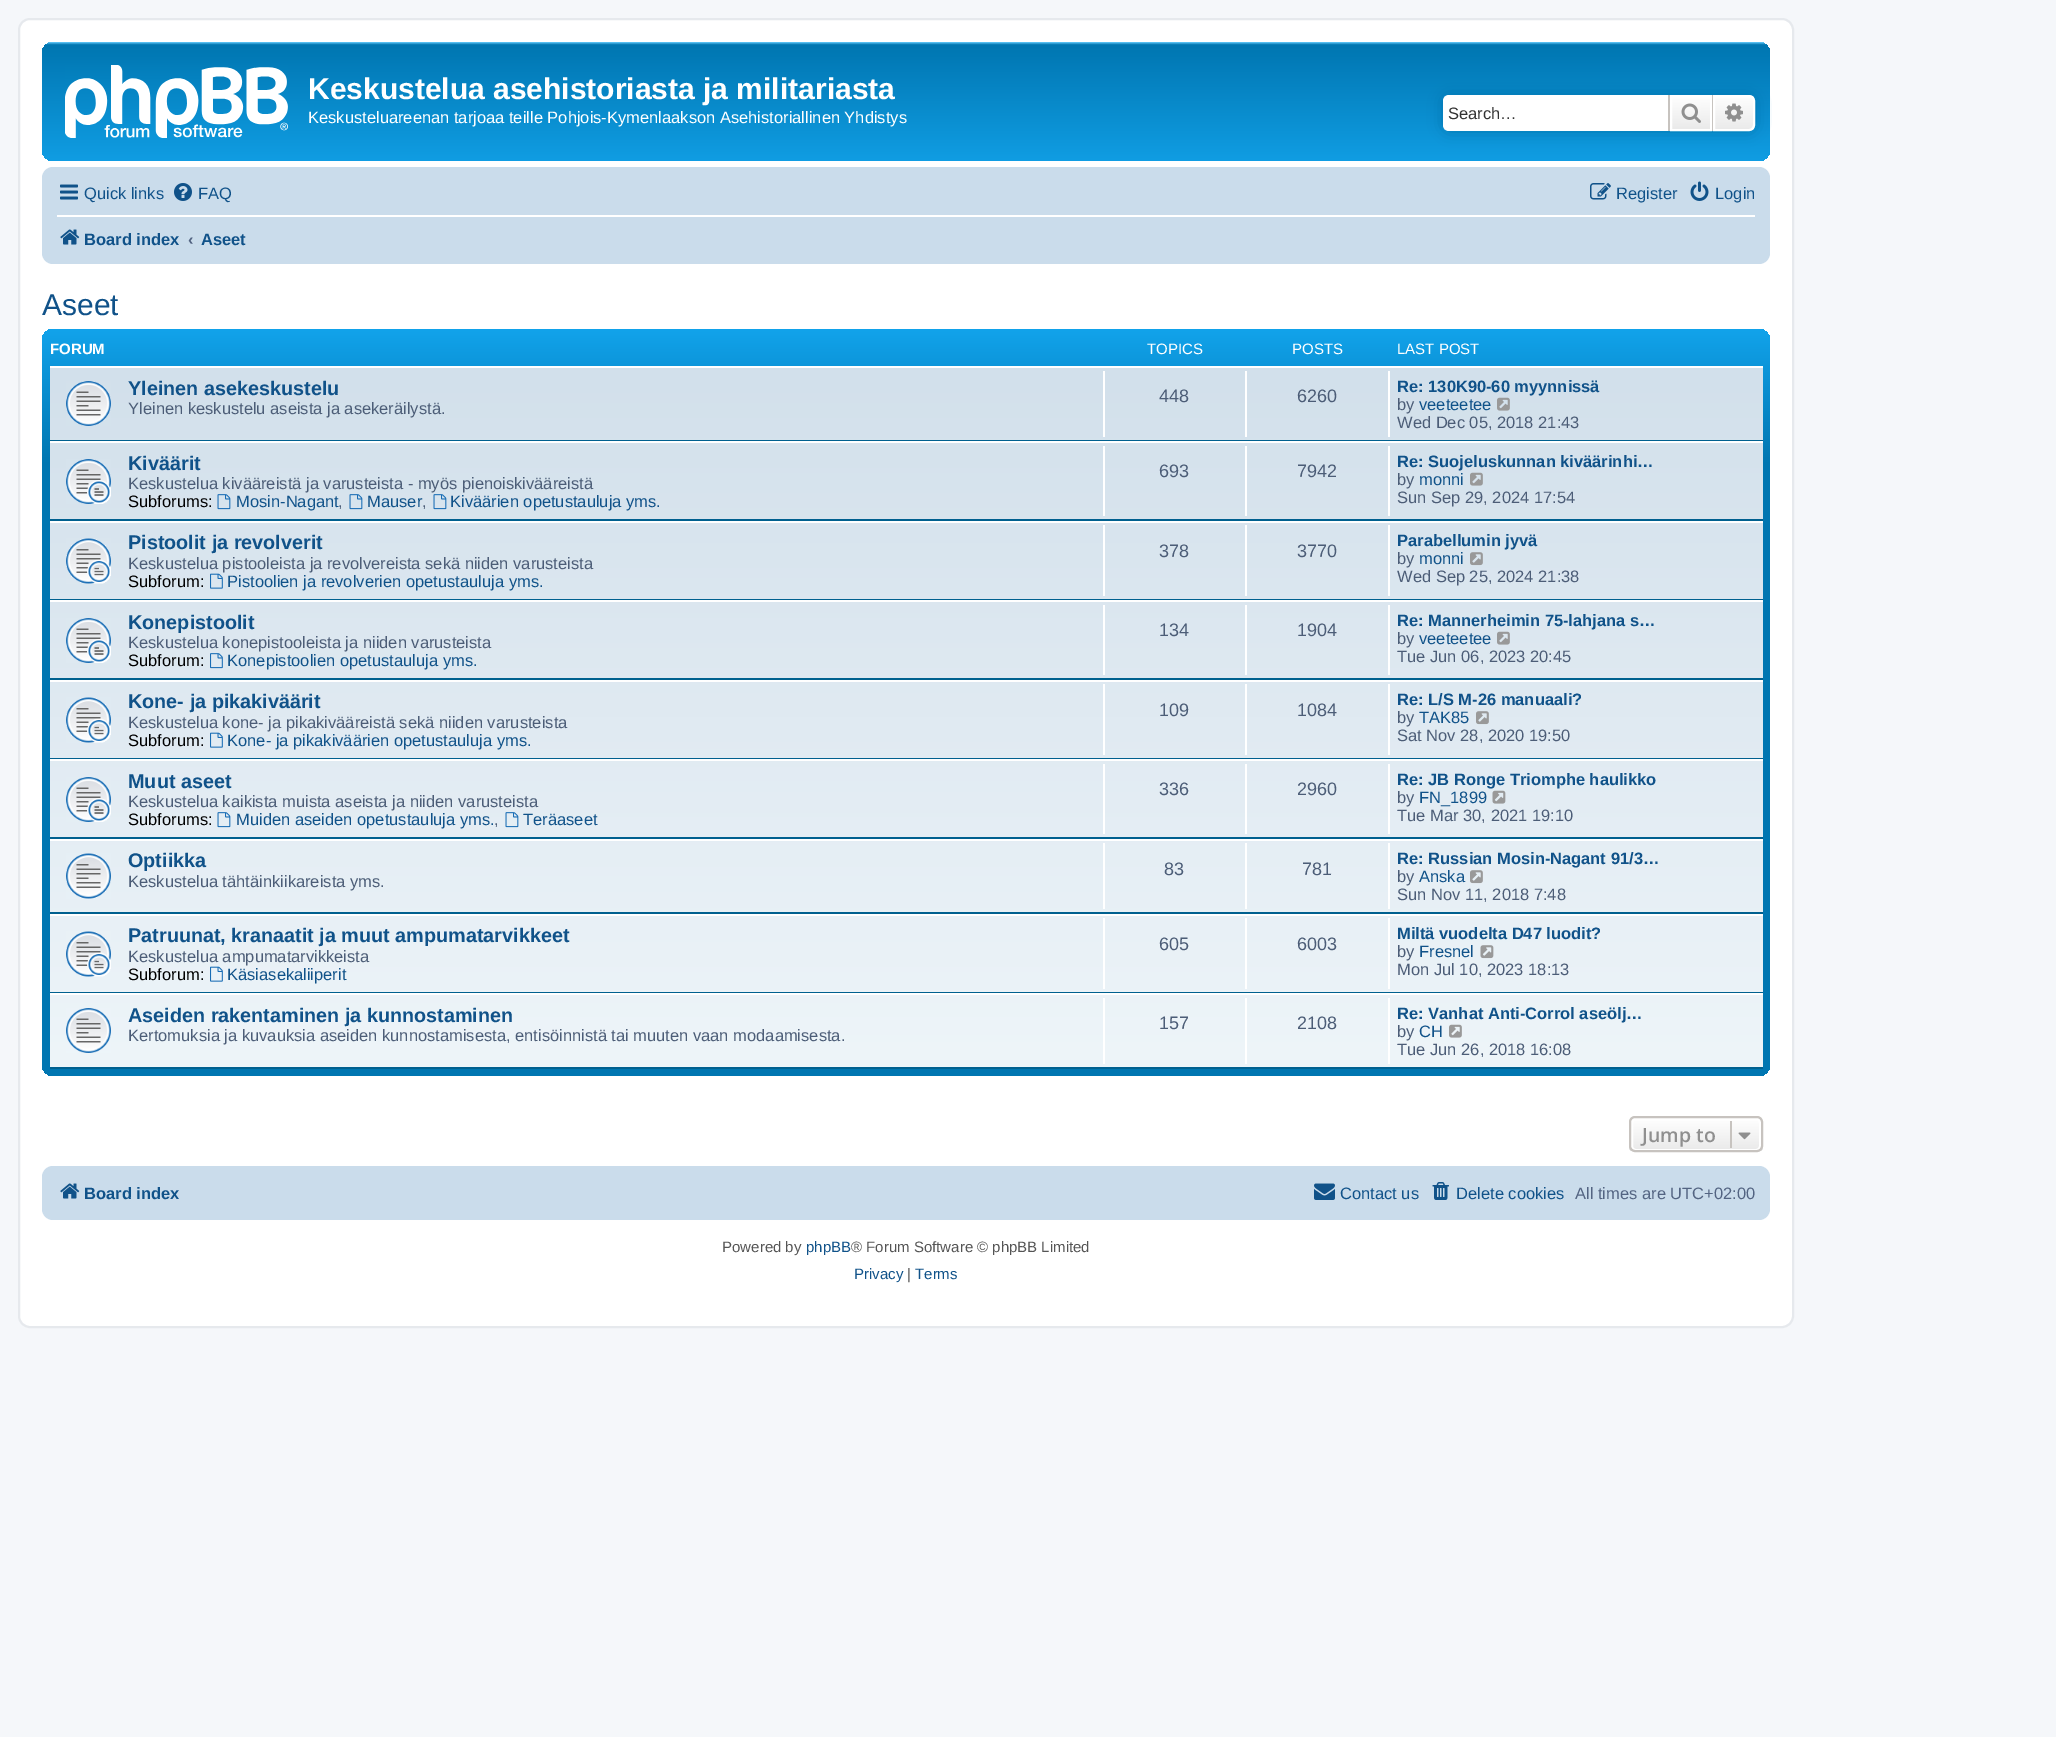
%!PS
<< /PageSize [2056 1737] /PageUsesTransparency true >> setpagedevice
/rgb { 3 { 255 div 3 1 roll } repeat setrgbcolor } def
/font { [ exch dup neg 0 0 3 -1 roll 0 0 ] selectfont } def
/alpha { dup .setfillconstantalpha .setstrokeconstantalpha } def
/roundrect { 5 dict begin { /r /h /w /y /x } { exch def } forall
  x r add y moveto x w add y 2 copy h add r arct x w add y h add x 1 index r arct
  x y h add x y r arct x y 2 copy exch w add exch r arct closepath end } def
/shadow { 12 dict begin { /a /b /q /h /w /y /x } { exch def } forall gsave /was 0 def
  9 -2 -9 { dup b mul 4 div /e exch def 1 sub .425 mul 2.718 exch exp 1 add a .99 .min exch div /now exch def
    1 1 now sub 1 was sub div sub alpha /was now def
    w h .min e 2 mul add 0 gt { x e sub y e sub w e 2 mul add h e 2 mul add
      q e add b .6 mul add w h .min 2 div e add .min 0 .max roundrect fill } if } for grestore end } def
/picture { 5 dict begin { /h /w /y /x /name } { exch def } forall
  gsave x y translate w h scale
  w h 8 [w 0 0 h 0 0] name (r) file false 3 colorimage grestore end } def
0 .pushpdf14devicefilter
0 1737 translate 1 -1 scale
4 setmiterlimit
245 247 250 rgb
0 0 2056 1737 rectfill
255 255 255 rgb
19 19 1774 1308 11 roundrect gsave fill grestore
230 233 237 rgb
2 setlinewidth
stroke
gsave 42 42 1728 119 11 roundrect clip newpath
<< /ShadingType 2 /ColorSpace /DeviceRGB /Coords [906 42 906 180] /Extend [true true] /Function << /FunctionType 3 /Domain [0 1] /Functions [<< /FunctionType 2 /Domain [0 1] /C0 [0.416 0.808 1] /C1 [0 0.463 0.694] /N 1 >> << /FunctionType 2 /Domain [0 1] /C0 [0 0.463 0.694] /C1 [0.071 0.639 0.922] /N 1 >>] /Bounds [0.02] /Encode [0 1 0 1] >> >> shfill grestore
(img/1.rgb) 65 65 223 73 picture
0 117 176 rgb
1443 95 312 36 6 7.5 1 shadow
255 255 255 rgb
1449 95 moveto 1668 95 lineto 1668 131 lineto 1449 131 lineto 1445.5 131 1443 128.5 1443 125 curveto 1443 101 lineto 1443 97.5 1445.5 95 1449 95 curveto closepath fill
gsave 1672 97 moveto 1710 97 lineto 1710 129 lineto 1672 129 lineto closepath clip newpath
<< /ShadingType 2 /ColorSpace /DeviceRGB /Coords [1691 95 1691 131] /Extend [true true] /Function << /FunctionType 2 /Domain [0 1] /C0 [1 1 1] /C1 [0.914 0.914 0.914] /N 1 >> >> shfill grestore
1671 96 40 34 rectstroke
199 195 191 rgb
1712 95 1 36 rectfill
1668 95 2 36 rectfill
(img/2.rgb) 1681 103 20 20 picture
gsave 1714 96 moveto 1749 96 lineto 1752 96 1754 98 1754 101 curveto 1754 125 lineto 1754 128 1752 130 1749 130 curveto 1714 130 lineto closepath clip newpath
<< /ShadingType 2 /ColorSpace /DeviceRGB /Coords [1734 95 1734 131] /Extend [true true] /Function << /FunctionType 2 /Domain [0 1] /C0 [1 1 1] /C1 [0.914 0.914 0.914] /N 1 >> >> shfill grestore
255 255 255 rgb
1714 96 moveto 1749 96 lineto 1752 96 1754 98 1754 101 curveto 1754 125 lineto 1754 128 1752 130 1749 130 curveto 1714 130 lineto closepath stroke
(img/3.rgb) 1725 103 18 19 picture
202 220 235 rgb
42 167 1728 97 11 roundrect fill
(img/4.rgb) 60 184 18 16 picture
(img/5.rgb) 174 183 18 18 picture
(img/6.rgb) 1590 183 21 17 picture
(img/7.rgb) 1690 181 19 20 picture
255 255 255 rgb
57 215 1698 2 rectfill
(img/8.rgb) 60 229 20 16 picture
gsave 42 329 1728 747 11 roundrect clip newpath
<< /ShadingType 2 /ColorSpace /DeviceRGB /Coords [906 328 906 1076] /Extend [true true] /Function << /FunctionType 3 /Domain [0 1] /Functions [<< /FunctionType 2 /Domain [0 1] /C0 [0.071 0.639 0.922] /C1 [0 0.463 0.694] /N 1 >> << /FunctionType 2 /Domain [0 1] /C0 [0 0.463 0.694] /C1 [0 0.463 0.694] /N 1 >>] /Bounds [0.18] /Encode [0 1 0 1] >> >> shfill grestore
gsave 50 368 moveto 1763 368 lineto 1763 1067 lineto 50 1067 lineto closepath clip newpath
<< /ShadingType 2 /ColorSpace /DeviceRGB /Coords [906 366 906 1068] /Extend [true true] /Function << /FunctionType 2 /Domain [0 1] /C0 [0.824 0.878 0.922] /C1 [0.933 0.961 0.976] /N 1 >> >> shfill grestore
50 366 1713 2 rectfill
0 96 143 rgb
50 440 1713 1 rectfill
(img/9.rgb) 66 381 45 45 picture
[
  [1103 371 2 66 255 255 255]
  [1245 371 2 66 255 255 255]
  [1388 371 2 66 255 255 255]
] { aload pop rgb rectfill } forall
(img/10.rgb) 1497 397 13 14 picture
50 441 1713 2 rectfill
0 96 143 rgb
50 519 1713 2 rectfill
(img/11.rgb) 66 459 45 45 picture
(img/12.rgb) 217 494 14 16 picture
(img/12.rgb) 349 494 14 16 picture
(img/12.rgb) 433 494 14 16 picture
[
  [1103 446 2 70 255 255 255]
  [1245 446 2 70 255 255 255]
  [1388 446 2 70 255 255 255]
] { aload pop rgb rectfill } forall
(img/13.rgb) 1470 472 13 14 picture
50 521 1713 2 rectfill
0 96 143 rgb
50 599 1713 1 rectfill
(img/14.rgb) 66 538 45 46 picture
(img/15.rgb) 210 573 13 16 picture
[
  [1103 525 2 71 255 255 255]
  [1245 525 2 71 255 255 255]
  [1388 525 2 71 255 255 255]
] { aload pop rgb rectfill } forall
(img/16.rgb) 1470 552 13 14 picture
50 600 1713 2 rectfill
0 96 143 rgb
50 678 1713 2 rectfill
(img/17.rgb) 66 618 45 45 picture
(img/18.rgb) 210 653 13 16 picture
[
  [1103 605 2 70 255 255 255]
  [1245 605 2 70 255 255 255]
  [1388 605 2 70 255 255 255]
] { aload pop rgb rectfill } forall
(img/19.rgb) 1497 631 13 14 picture
50 680 1713 2 rectfill
0 96 143 rgb
50 758 1713 1 rectfill
(img/20.rgb) 66 697 45 46 picture
(img/21.rgb) 210 732 13 16 picture
[
  [1103 684 2 71 255 255 255]
  [1245 684 2 71 255 255 255]
  [1388 684 2 71 255 255 255]
] { aload pop rgb rectfill } forall
(img/22.rgb) 1476 711 13 14 picture
50 759 1713 2 rectfill
0 96 143 rgb
50 837 1713 2 rectfill
(img/23.rgb) 66 777 45 45 picture
(img/24.rgb) 217 812 14 16 picture
(img/24.rgb) 505 812 14 16 picture
[
  [1103 764 2 70 255 255 255]
  [1245 764 2 70 255 255 255]
  [1388 764 2 70 255 255 255]
] { aload pop rgb rectfill } forall
(img/25.rgb) 1492 790 14 14 picture
50 839 1713 2 rectfill
0 96 143 rgb
50 912 1713 2 rectfill
(img/26.rgb) 66 853 45 46 picture
[
  [1103 843 2 66 255 255 255]
  [1245 843 2 66 255 255 255]
  [1388 843 2 66 255 255 255]
] { aload pop rgb rectfill } forall
(img/27.rgb) 1470 870 13 14 picture
50 914 1713 2 rectfill
0 96 143 rgb
50 992 1713 1 rectfill
(img/28.rgb) 66 931 45 46 picture
(img/29.rgb) 210 966 13 16 picture
[
  [1103 918 2 71 255 255 255]
  [1245 918 2 71 255 255 255]
  [1388 918 2 71 255 255 255]
] { aload pop rgb rectfill } forall
(img/30.rgb) 1480 945 14 14 picture
50 993 1713 2 rectfill
0 96 143 rgb
50 1067 1713 2 rectfill
(img/31.rgb) 66 1008 45 45 picture
[
  [1103 998 2 66 255 255 255]
  [1245 998 2 66 255 255 255]
  [1388 998 2 66 255 255 255]
] { aload pop rgb rectfill } forall
(img/32.rgb) 1449 1024 13 14 picture
gsave
1629 1116 134 36 6 roundrect clip newpath
gsave 1629 1118 moveto 1763 1118 lineto 1763 1151 lineto 1629 1151 lineto closepath clip newpath
<< /ShadingType 2 /ColorSpace /DeviceRGB /Coords [1696 1118 1696 1151] /Extend [true true] /Function << /FunctionType 2 /Domain [0 1] /C0 [1 1 1] /C1 [0.914 0.914 0.914] /N 1 >> >> shfill grestore
grestore
1632 1119 128 31 4 roundrect stroke
199 195 191 rgb
1630 1117 132 34 5 roundrect stroke
1730 1121 2 27 rectfill
(img/33.rgb) 1738 1132 13 8 picture
202 220 235 rgb
42 1166 1728 54 11 roundrect fill
(img/8.rgb) 60 1183 20 16 picture
(img/34.rgb) 1314 1183 21 17 picture
(img/35.rgb) 1432 1182 17 18 picture
/LiberationSans-Bold 30 font
255 255 255 rgb
308 99 moveto (Keskustelua asehistoriasta ja militariasta) show
/LiberationSans-Regular 16.5 font
308 123 moveto (Keskusteluareenan tarjoaa teille Pohjois-Kymenlaakson Asehistoriallinen Yhdistys) show
51 51 51 rgb
1448 119 moveto (Search…) show
16 82 137 rgb
[
  [(Quick links) 84 199]
  [(FAQ) 198 199]
  [(Register) 1616 199]
  [(Login) 1715 199]
] { aload pop moveto show } forall
/LiberationSans-Bold 16.5 font
84 245 moveto (Board index) show
83 100 130 rgb
188 245 moveto (‹) show
16 82 137 rgb
201 245 moveto (Aseet) show
/LiberationSans-Regular 30 font
42 315 moveto (Aseet) show
/LiberationSans-Bold 15 font
255 255 255 rgb
50 354 moveto (FORUM) show
/LiberationSans-Regular 15 font
[
  [(TOPICS) 1147 354]
  [(POSTS) 1292 354]
  [(LAST POST) 1397 354]
] { aload pop moveto show } forall
/LiberationSans-Bold 19.8 font
16 82 137 rgb
128 395 moveto (Yleinen asekeskustelu) show
/LiberationSans-Regular 16.5 font
76 93 119 rgb
128 414 moveto (Yleinen keskustelu aseista ja asekeräilystä.) show
/LiberationSans-Regular 18 font
1159 402 moveto (448) show
1297 402 moveto (6260) show
/LiberationSans-Bold 16.5 font
16 82 137 rgb
1397 392 moveto (Re: 130K90-60 myynnissä) show
/LiberationSans-Regular 16.5 font
76 93 119 rgb
1397 410 moveto (by) show
16 82 137 rgb
1419 410 moveto (veeteetee) show
76 93 119 rgb
1397 428 moveto (Wed Dec 05, 2018 21:43) show
/LiberationSans-Bold 19.8 font
16 82 137 rgb
128 470 moveto (Kiväärit) show
/LiberationSans-Regular 16.5 font
76 93 119 rgb
128 489 moveto (Keskustelua kivääreistä ja varusteista - myös pienoiskivääreistä) show
0 0 0 rgb
128 507 moveto (Subforums:) show
16 82 137 rgb
236 507 moveto (Mosin-Nagant) show
76 93 119 rgb
338 507 moveto (,) show
16 82 137 rgb
367 507 moveto (Mauser) show
76 93 119 rgb
422 507 moveto (,) show
16 82 137 rgb
450 507 moveto (Kiväärien opetustauluja yms.) show
/LiberationSans-Regular 18 font
76 93 119 rgb
1159 477 moveto (693) show
1297 477 moveto (7942) show
/LiberationSans-Bold 16.5 font
16 82 137 rgb
1397 467 moveto (Re: Suojeluskunnan kiväärinhi…) show
/LiberationSans-Regular 16.5 font
76 93 119 rgb
1397 485 moveto (by) show
16 82 137 rgb
1419 485 moveto (monni) show
76 93 119 rgb
1397 503 moveto (Sun Sep 29, 2024 17:54) show
/LiberationSans-Bold 19.8 font
16 82 137 rgb
128 549 moveto (Pistoolit ja revolverit) show
/LiberationSans-Regular 16.5 font
76 93 119 rgb
128 569 moveto (Keskustelua pistooleista ja revolvereista sekä niiden varusteista) show
0 0 0 rgb
128 587 moveto (Subforum:) show
16 82 137 rgb
227 587 moveto (Pistoolien ja revolverien opetustauluja yms.) show
/LiberationSans-Regular 18 font
76 93 119 rgb
1159 557 moveto (378) show
1297 557 moveto (3770) show
/LiberationSans-Bold 16.5 font
16 82 137 rgb
1397 546 moveto (Parabellumin jyvä) show
/LiberationSans-Regular 16.5 font
76 93 119 rgb
1397 564 moveto (by) show
16 82 137 rgb
1419 564 moveto (monni) show
76 93 119 rgb
1397 582 moveto (Wed Sep 25, 2024 21:38) show
/LiberationSans-Bold 19.8 font
16 82 137 rgb
128 629 moveto (Konepistoolit) show
/LiberationSans-Regular 16.5 font
76 93 119 rgb
128 648 moveto (Keskustelua konepistooleista ja niiden varusteista) show
0 0 0 rgb
128 666 moveto (Subforum:) show
16 82 137 rgb
227 666 moveto (Konepistoolien opetustauluja yms.) show
/LiberationSans-Regular 18 font
76 93 119 rgb
1159 636 moveto (134) show
1297 636 moveto (1904) show
/LiberationSans-Bold 16.5 font
16 82 137 rgb
1397 626 moveto (Re: Mannerheimin 75-lahjana s…) show
/LiberationSans-Regular 16.5 font
76 93 119 rgb
1397 644 moveto (by) show
16 82 137 rgb
1419 644 moveto (veeteetee) show
76 93 119 rgb
1397 662 moveto (Tue Jun 06, 2023 20:45) show
/LiberationSans-Bold 19.8 font
16 82 137 rgb
128 708 moveto (Kone- ja pikakiväärit) show
/LiberationSans-Regular 16.5 font
76 93 119 rgb
128 728 moveto (Keskustelua kone- ja pikakivääreistä sekä niiden varusteista) show
0 0 0 rgb
128 746 moveto (Subforum:) show
16 82 137 rgb
227 746 moveto (Kone- ja pikakiväärien opetustauluja yms.) show
/LiberationSans-Regular 18 font
76 93 119 rgb
1159 716 moveto (109) show
1297 716 moveto (1084) show
/LiberationSans-Bold 16.5 font
16 82 137 rgb
1397 705 moveto (Re: L/S M-26 manuaali?) show
/LiberationSans-Regular 16.5 font
76 93 119 rgb
1397 723 moveto (by) show
16 82 137 rgb
1419 723 moveto (TAK85) show
76 93 119 rgb
1397 741 moveto (Sat Nov 28, 2020 19:50) show
/LiberationSans-Bold 19.8 font
16 82 137 rgb
128 788 moveto (Muut aseet) show
/LiberationSans-Regular 16.5 font
76 93 119 rgb
128 807 moveto (Keskustelua kaikista muista aseista ja niiden varusteista) show
0 0 0 rgb
128 825 moveto (Subforums:) show
16 82 137 rgb
236 825 moveto (Muiden aseiden opetustauluja yms.) show
76 93 119 rgb
494 825 moveto (,) show
16 82 137 rgb
523 825 moveto (Teräaseet) show
/LiberationSans-Regular 18 font
76 93 119 rgb
1159 795 moveto (336) show
1297 795 moveto (2960) show
/LiberationSans-Bold 16.5 font
16 82 137 rgb
1397 785 moveto (Re: JB Ronge Triomphe haulikko) show
/LiberationSans-Regular 16.5 font
76 93 119 rgb
1397 803 moveto (by) show
16 82 137 rgb
1419 803 moveto (FN_1899) show
76 93 119 rgb
1397 821 moveto (Tue Mar 30, 2021 19:10) show
/LiberationSans-Bold 19.8 font
16 82 137 rgb
128 867 moveto (Optiikka) show
/LiberationSans-Regular 16.5 font
76 93 119 rgb
128 887 moveto (Keskustelua tähtäinkiikareista yms.) show
/LiberationSans-Regular 18 font
1164 875 moveto (83) show
1302 875 moveto (781) show
/LiberationSans-Bold 16.5 font
16 82 137 rgb
1397 864 moveto (Re: Russian Mosin-Nagant 91/3…) show
/LiberationSans-Regular 16.5 font
76 93 119 rgb
1397 882 moveto (by) show
16 82 137 rgb
1419 882 moveto (Anska) show
76 93 119 rgb
1397 900 moveto (Sun Nov 11, 2018 7:48) show
/LiberationSans-Bold 19.8 font
16 82 137 rgb
128 942 moveto (Patruunat, kranaatit ja muut ampumatarvikkeet) show
/LiberationSans-Regular 16.5 font
76 93 119 rgb
128 962 moveto (Keskustelua ampumatarvikkeista) show
0 0 0 rgb
128 980 moveto (Subforum:) show
16 82 137 rgb
227 980 moveto (Käsiasekaliiperit) show
/LiberationSans-Regular 18 font
76 93 119 rgb
1159 950 moveto (605) show
1297 950 moveto (6003) show
/LiberationSans-Bold 16.5 font
16 82 137 rgb
1397 939 moveto (Miltä vuodelta D47 luodit?) show
/LiberationSans-Regular 16.5 font
76 93 119 rgb
1397 957 moveto (by) show
16 82 137 rgb
1419 957 moveto (Fresnel) show
76 93 119 rgb
1397 975 moveto (Mon Jul 10, 2023 18:13) show
/LiberationSans-Bold 19.8 font
16 82 137 rgb
128 1022 moveto (Aseiden rakentaminen ja kunnostaminen) show
/LiberationSans-Regular 16.5 font
76 93 119 rgb
128 1041 moveto (Kertomuksia ja kuvauksia aseiden kunnostamisesta, entisöinnistä tai muuten vaan modaamisesta.) show
/LiberationSans-Regular 18 font
1159 1029 moveto (157) show
1297 1029 moveto (2108) show
/LiberationSans-Bold 16.5 font
16 82 137 rgb
1397 1019 moveto (Re: Vanhat Anti-Corrol aseölj…) show
/LiberationSans-Regular 16.5 font
76 93 119 rgb
1397 1037 moveto (by) show
16 82 137 rgb
1419 1037 moveto (CH) show
76 93 119 rgb
1397 1055 moveto (Tue Jun 26, 2018 16:08) show
/OpenSans-SemiBold 19.5 font
143 143 143 rgb
1642 1142 moveto (Jump to) show
/LiberationSans-Bold 16.5 font
16 82 137 rgb
84 1199 moveto (Board index) show
/LiberationSans-Regular 16.5 font
1340 1199 moveto (Contact us) show
1456 1199 moveto (Delete cookies) show
83 100 130 rgb
1575 1199 moveto (All times are UTC+02:00) show
/LiberationSans-Regular 15 font
85 85 85 rgb
722 1252 moveto (Powered by) show
16 82 137 rgb
806 1252 moveto (phpBB) show
85 85 85 rgb
851 1252 moveto (® Forum Software © phpBB Limited) show
16 82 137 rgb
854 1279 moveto (Privacy) show
85 85 85 rgb
907 1279 moveto (|) show
16 82 137 rgb
915 1279 moveto (Terms) show
.poppdf14devicefilter showpage
